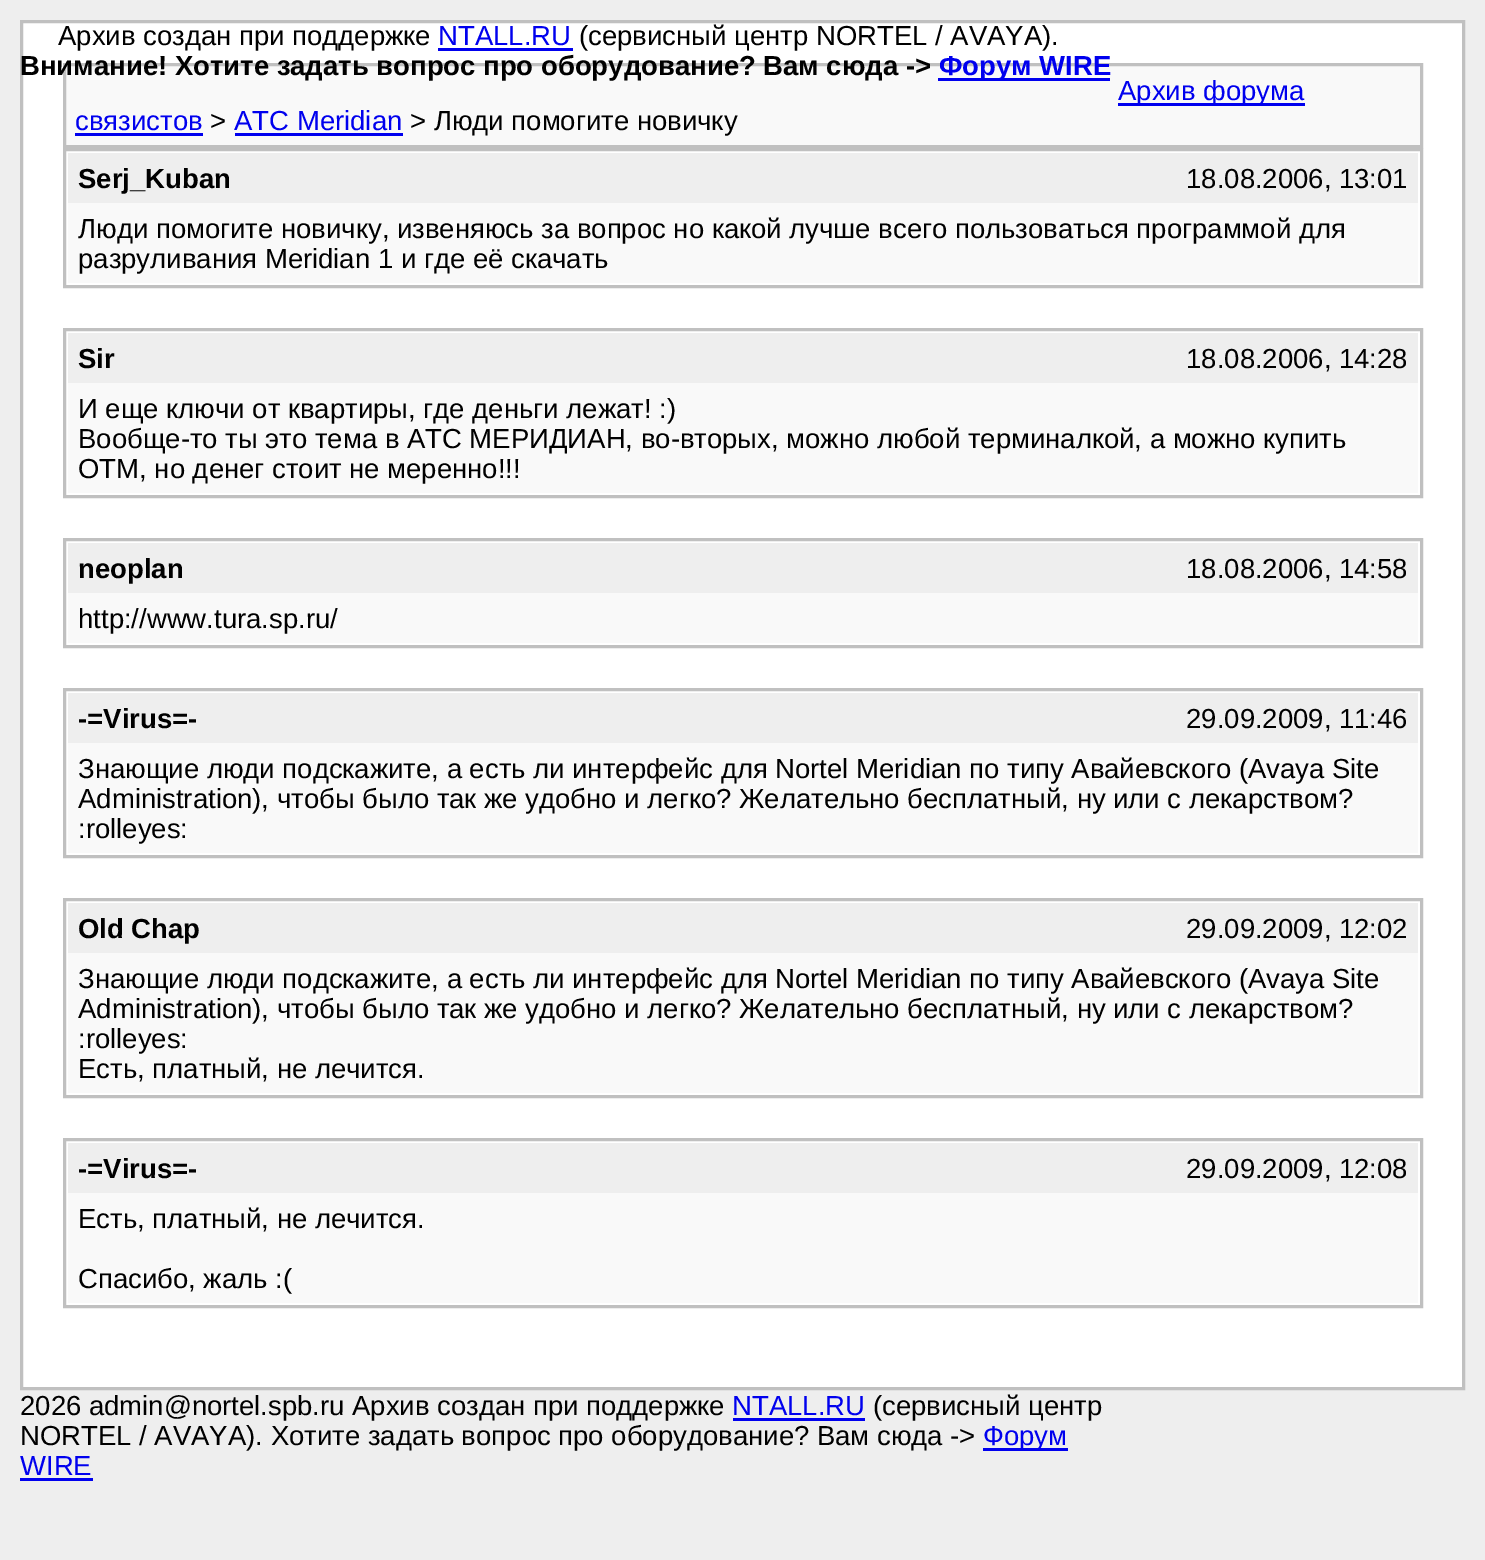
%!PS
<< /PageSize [1485 1560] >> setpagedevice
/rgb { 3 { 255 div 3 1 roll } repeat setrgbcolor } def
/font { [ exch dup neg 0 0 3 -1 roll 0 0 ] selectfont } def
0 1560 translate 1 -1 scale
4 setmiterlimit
238 238 238 rgb
0 0 1485 1560 rectfill
255 255 255 rgb
21.5 21.5 moveto 1463.5 21.5 lineto 1463.5 1388.5 lineto 21.5 1388.5 lineto closepath gsave fill grestore
192 192 192 rgb
3 setlinewidth
stroke
0 0 238 rgb
438 48 135 3 rectfill
249 249 249 rgb
64.5 64.5 moveto 1421.5 64.5 lineto 1421.5 146.5 lineto 64.5 146.5 lineto closepath gsave fill grestore
192 192 192 rgb
stroke
[
  [938 78 172 3 0 0 238]
  [1118 103 187 3 0 0 238]
  [75 133 128 3 0 0 238]
  [235 133 168 3 0 0 238]
] { aload pop rgb rectfill } forall
192 192 192 rgb
64.5 149.5 1357 137 rectstroke
238 238 238 rgb
68 153 1350 50 rectfill
249 249 249 rgb
68 203 1350 80 rectfill
192 192 192 rgb
64.5 329.5 1357 167 rectstroke
238 238 238 rgb
68 333 1350 50 rectfill
249 249 249 rgb
68 383 1350 110 rectfill
192 192 192 rgb
64.5 539.5 1357 107 rectstroke
238 238 238 rgb
68 543 1350 50 rectfill
249 249 249 rgb
68 593 1350 50 rectfill
192 192 192 rgb
64.5 689.5 1357 167 rectstroke
238 238 238 rgb
68 693 1350 50 rectfill
249 249 249 rgb
68 743 1350 110 rectfill
192 192 192 rgb
64.5 899.5 1357 197 rectstroke
238 238 238 rgb
68 903 1350 50 rectfill
249 249 249 rgb
68 953 1350 140 rectfill
192 192 192 rgb
64.5 1139.5 1357 167 rectstroke
[
  [68 1143 1350 50 238 238 238]
  [68 1193 1350 110 249 249 249]
  [733 1418 132 3 0 0 238]
  [983 1448 85 3 0 0 238]
  [20 1478 73 3 0 0 238]
] { aload pop rgb rectfill } forall
/LiberationSans-Regular 27.5 font
0 0 0 rgb
58 45 moveto (Архив создан при поддержке) show
0 0 238 rgb
438 45 moveto (NTALL.RU) show
0 0 0 rgb
579 45 moveto (\(сервисный центр NORTEL / AVAYA\).) show
/LiberationSans-Bold 27.5 font
20 75 moveto (Внимание! Хотите задать вопрос про оборудование? Вам сюда ->) show
0 0 238 rgb
939 75 moveto (Форум WIRE) show
/LiberationSans-Regular 27.5 font
1118 100 moveto (Архив форума) show
75 130 moveto (связистов) show
0 0 0 rgb
210 130 moveto (>) show
0 0 238 rgb
234 130 moveto (АТС Meridian) show
0 0 0 rgb
410 130 moveto (> Люди помогите новичку) show
/LiberationSans-Bold 27.5 font
78 188 moveto (Serj_Kuban) show
/LiberationSans-Regular 27.5 font
[
  [(18.08.2006, 13:01) 1186 188]
  [(Люди помогите новичку, извеняюсь за вопрос но какой лучше всего пользоваться программой для) 78 238]
  [(разруливания Meridian 1 и где её скачать) 78 268]
] { aload pop moveto show } forall
/LiberationSans-Bold 27.5 font
78 368 moveto (Sir) show
/LiberationSans-Regular 27.5 font
[
  [(18.08.2006, 14:28) 1186 368]
  [(И еще ключи от квартиры, где деньги лежат! :\)) 78 418]
  [(Вообще-то ты это тема в АТС МЕРИДИАН, во-вторых, можно любой терминалкой, а можно купить) 78 448]
  [(ОТМ, но денег стоит не меренно!!!) 78 478]
] { aload pop moveto show } forall
/LiberationSans-Bold 27.5 font
78 578 moveto (neoplan) show
/LiberationSans-Regular 27.5 font
1186 578 moveto (18.08.2006, 14:58) show
78 628 moveto (http://www.tura.sp.ru/) show
/LiberationSans-Bold 27.5 font
78 728 moveto (-=Virus=-) show
/LiberationSans-Regular 27.5 font
[
  [(29.09.2009, 11:46) 1186 728]
  [(Знающие люди подскажите, а есть ли интерфейс для Nortel Meridian по типу Авайевского \(Avaya Site) 78 778]
  [(Administration\), чтобы было так же удобно и легко? Желательно бесплатный, ну или с лекарством?) 78 808]
  [(:rolleyes:) 78 838]
] { aload pop moveto show } forall
/LiberationSans-Bold 27.5 font
78 938 moveto (Old Chap) show
/LiberationSans-Regular 27.5 font
[
  [(29.09.2009, 12:02) 1186 938]
  [(Знающие люди подскажите, а есть ли интерфейс для Nortel Meridian по типу Авайевского \(Avaya Site) 78 988]
  [(Administration\), чтобы было так же удобно и легко? Желательно бесплатный, ну или с лекарством?) 78 1018]
  [(:rolleyes:) 78 1048]
  [(Есть, платный, не лечится.) 78 1078]
] { aload pop moveto show } forall
/LiberationSans-Bold 27.5 font
78 1178 moveto (-=Virus=-) show
/LiberationSans-Regular 27.5 font
[
  [(29.09.2009, 12:08) 1186 1178]
  [(Есть, платный, не лечится.) 78 1228]
  [(Спасибо, жаль :\() 78 1288]
  [(2026 admin@nortel.spb.ru Архив создан при поддержке) 20 1415]
] { aload pop moveto show } forall
0 0 238 rgb
732 1415 moveto (NTALL.RU) show
0 0 0 rgb
873 1415 moveto (\(сервисный центр) show
20 1445 moveto (NORTEL / AVAYA\). Хотите задать вопрос про оборудование? Вам сюда ->) show
0 0 238 rgb
983 1445 moveto (Форум) show
20 1475 moveto (WIRE) show
showpage
